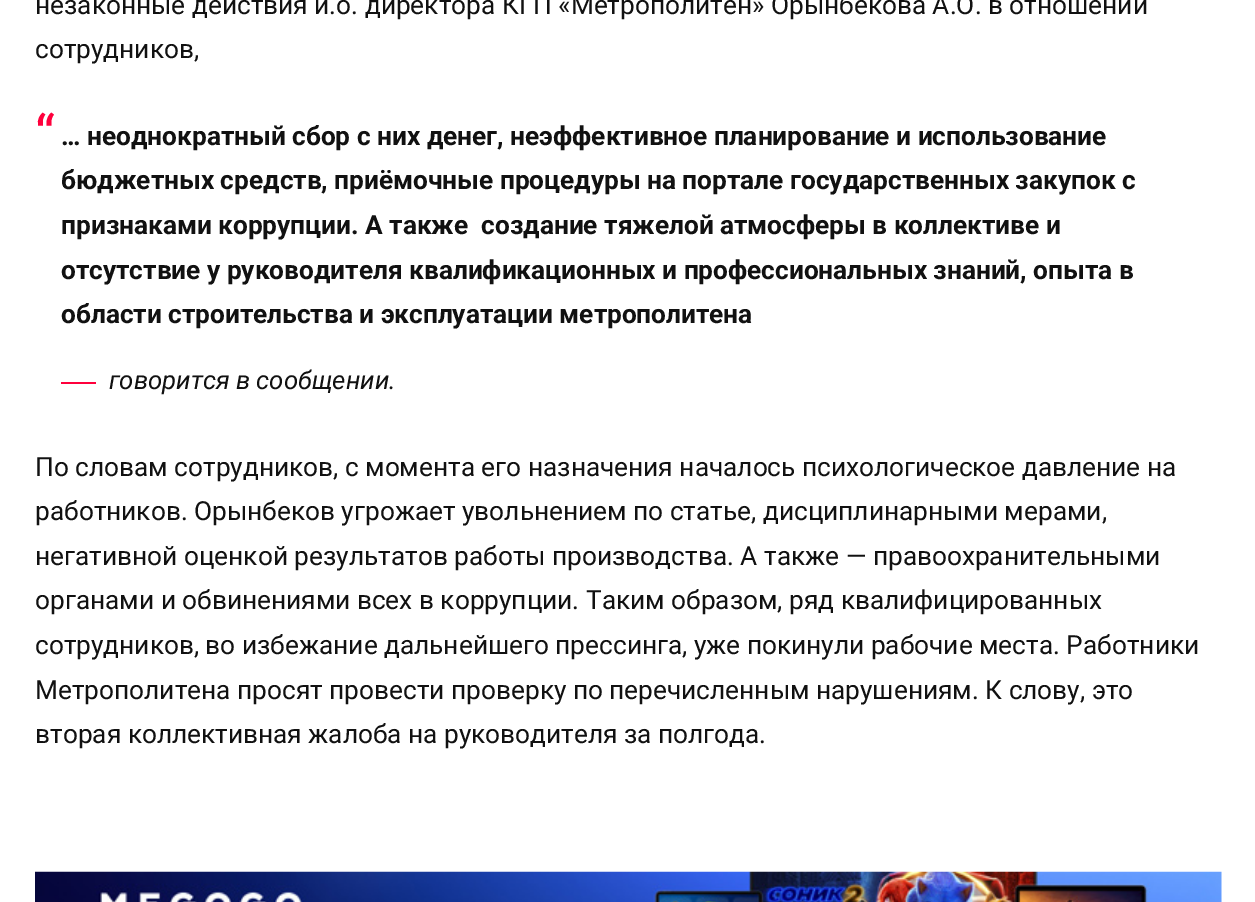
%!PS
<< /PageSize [1255 902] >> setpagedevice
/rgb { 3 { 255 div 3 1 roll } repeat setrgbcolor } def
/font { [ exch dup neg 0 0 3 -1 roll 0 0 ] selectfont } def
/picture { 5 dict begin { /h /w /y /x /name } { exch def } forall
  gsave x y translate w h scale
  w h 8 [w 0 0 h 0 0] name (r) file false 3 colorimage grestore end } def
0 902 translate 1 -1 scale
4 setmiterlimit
255 255 255 rgb
0 0 1255 902 rectfill
255 0 60 rgb
61 382 35 2 rectfill
(img/1.rgb) 35 871 1187 31 picture
/Roboto-Regular 26.25 font
17 17 17 rgb
35 14 moveto (незаконные действия и.о. директора КГП «Метрополитен» Орынбекова А.О. в отношении) show
35 58 moveto (сотрудников,) show
/Roboto-Regular 56 font
255 0 60 rgb
35 155 moveto (“) show
/Roboto-Bold 26.25 font
17 17 17 rgb
[
  [(… неоднократный сбор с них денег, неэффективное планирование и использование) 61 145]
  [(бюджетных средств, приёмочные процедуры на портале государственных закупок с) 61 189]
  [(признаками коррупции. А также  создание тяжелой атмосферы в коллективе и) 61 234]
  [(отсутствие у руководителя квалификационных и профессиональных знаний, опыта в) 61 279]
  [(области строительства и эксплуатации метрополитена) 61 323]
] { aload pop moveto show } forall
/Roboto-Italic 25.75 font
109 389 moveto (говорится в сообщении.) show
/Roboto-Regular 26.25 font
[
  [(По словам сотрудников, с момента его назначения началось психологическое давление на) 35 476]
  [(работников. Орынбеков угрожает увольнением по статье, дисциплинарными мерами,) 35 520]
  [(негативной оценкой результатов работы производства. А также — правоохранительными) 35 565]
  [(органами и обвинениями всех в коррупции. Таким образом, ряд квалифицированных) 35 609]
  [(сотрудников, во избежание дальнейшего прессинга, уже покинули рабочие места. Работники) 35 654]
  [(Метрополитена просят провести проверку по перечисленным нарушениям. К слову, это) 35 699]
  [(вторая коллективная жалоба на руководителя за полгода.) 35 743]
] { aload pop moveto show } forall
showpage
